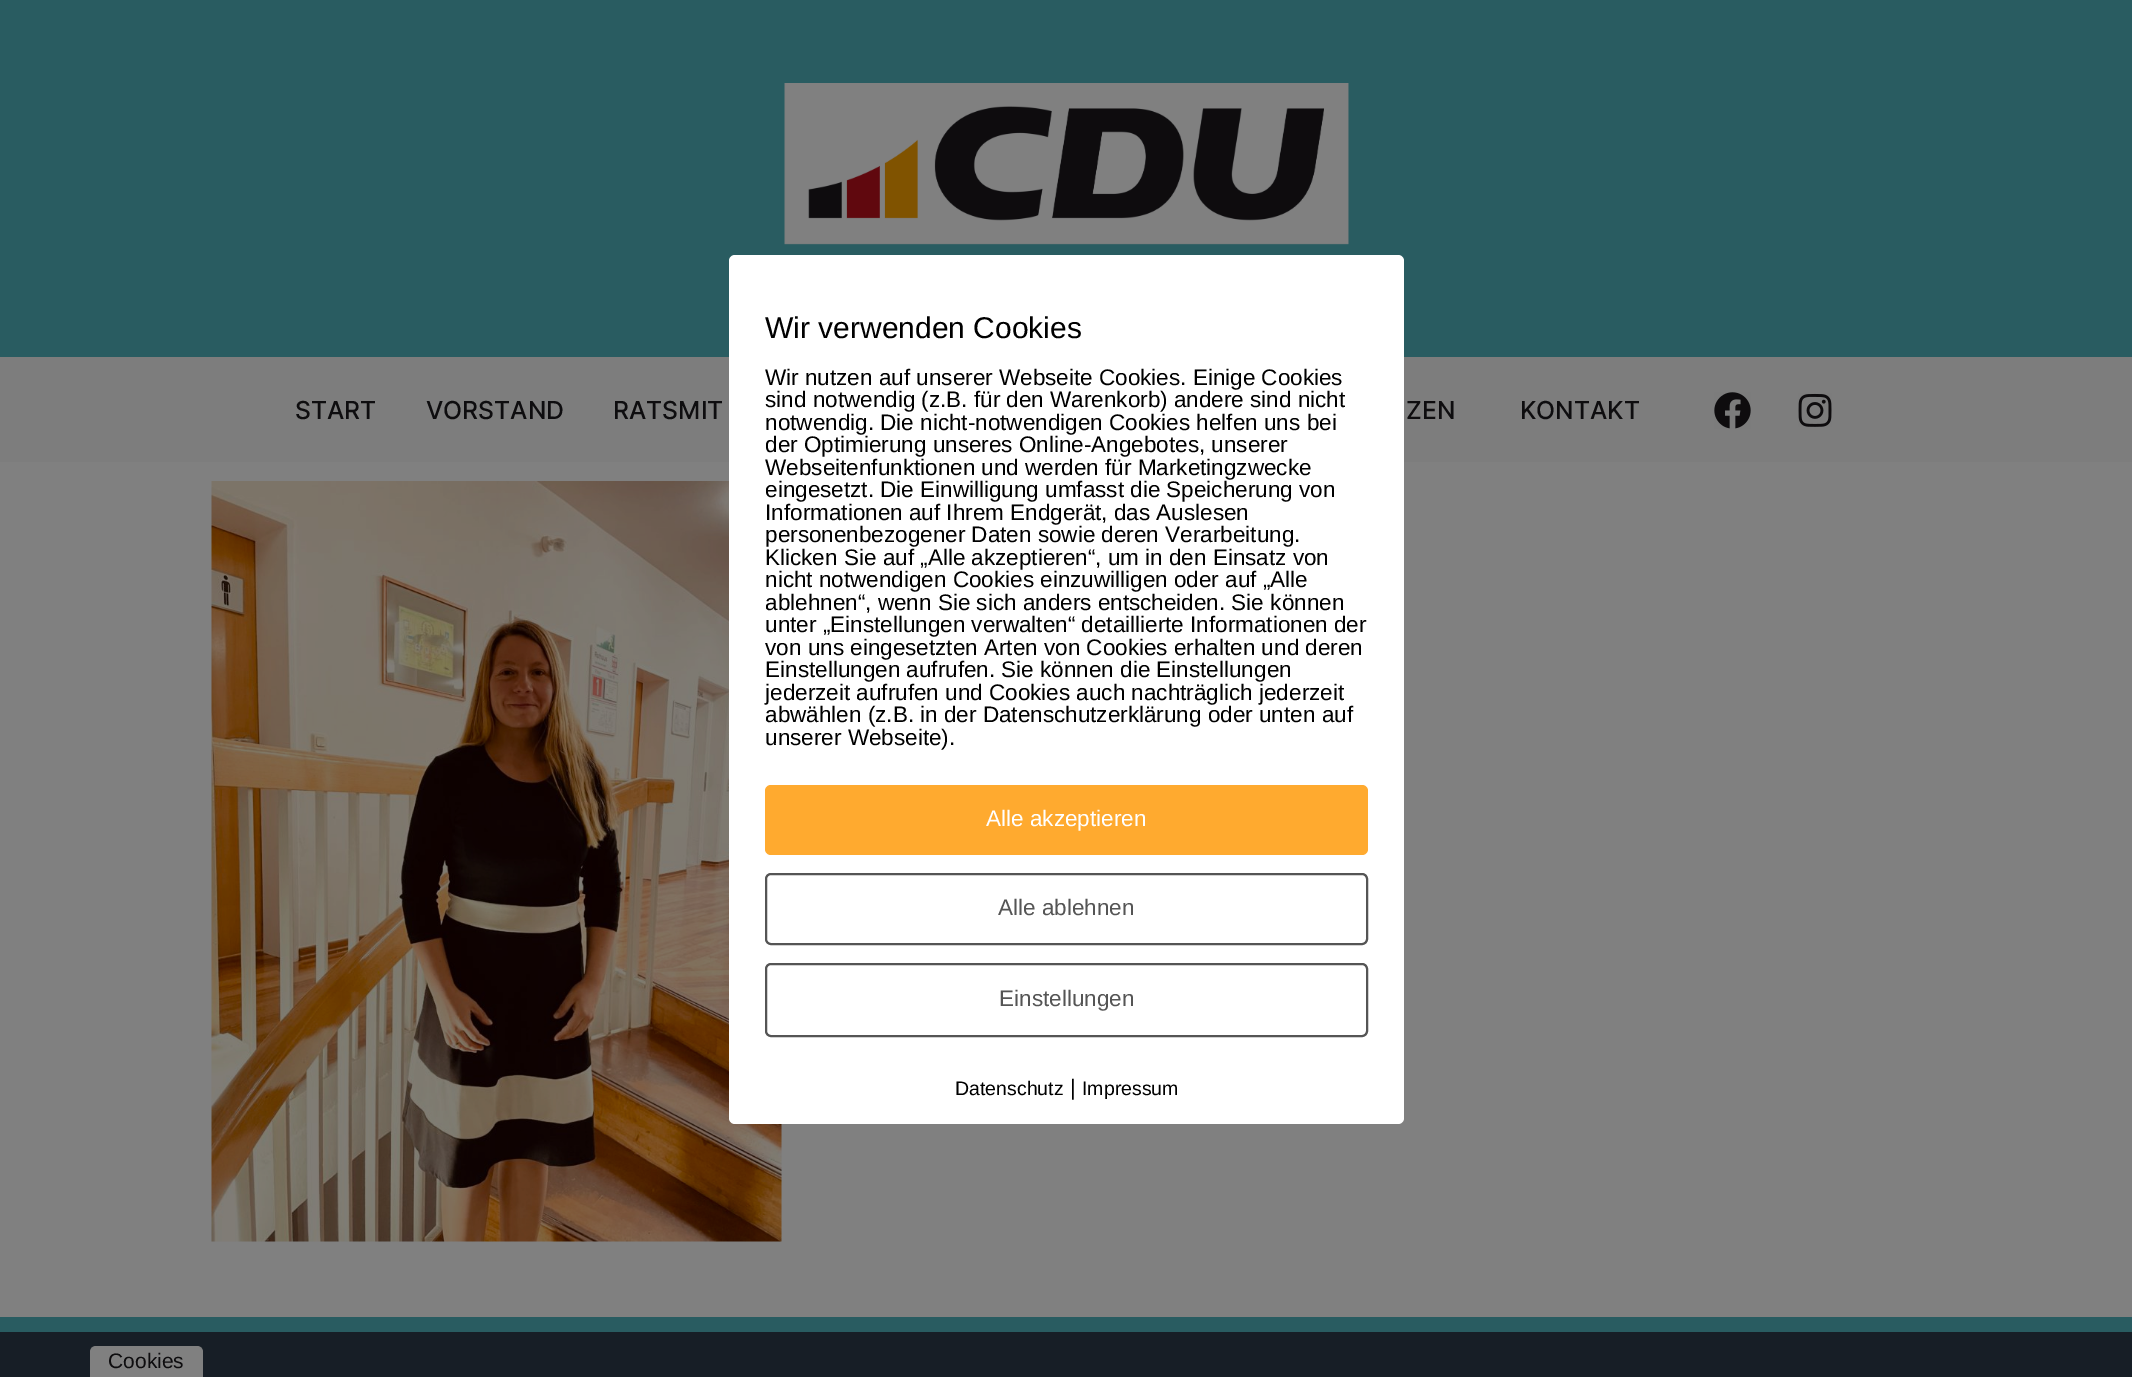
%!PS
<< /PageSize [2132 1377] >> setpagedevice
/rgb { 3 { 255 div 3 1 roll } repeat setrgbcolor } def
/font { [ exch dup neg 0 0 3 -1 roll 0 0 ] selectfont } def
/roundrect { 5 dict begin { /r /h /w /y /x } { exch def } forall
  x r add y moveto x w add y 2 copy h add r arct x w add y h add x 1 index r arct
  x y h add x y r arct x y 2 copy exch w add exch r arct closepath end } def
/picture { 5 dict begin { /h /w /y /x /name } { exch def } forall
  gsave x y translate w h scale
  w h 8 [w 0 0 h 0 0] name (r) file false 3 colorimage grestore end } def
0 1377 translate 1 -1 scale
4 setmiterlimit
128 128 128 rgb
0 0 2132 1377 rectfill
41 92 97 rgb
0 0 2132 357 rectfill
125 125 125 rgb
0 357 2132 105 rectfill
(img/4.rgb) 211 481 571 761 picture
255 255 255 rgb
729 255 675 869 6 roundrect fill
255 170 47 rgb
765 785 603 70 6 roundrect fill
85 85 85 rgb
2 setlinewidth
766 874 601 70 5 roundrect stroke
766 964 601 72 5 roundrect stroke
(img/1.rgb) 784 83 565 162 picture
(img/2.rgb) 1714 392 37 37 picture
(img/3.rgb) 1798 393 34 34 picture
23 30 38 rgb
0 1332 2132 45 rectfill
41 92 97 rgb
0 1317 2132 15 rectfill
128 128 128 rgb
96 1346 moveto 197 1346 lineto 200.5 1346 203 1348.5 203 1352 curveto 203 1377 lineto 90 1377 lineto 90 1352 lineto 90 1348.5 92.5 1346 96 1346 curveto closepath fill
/LiberationSans-Regular 30 font
0 0 0 rgb
765 338 moveto (Wir verwenden Cookies) show
/LiberationSans-Regular 22.5 font
[
  [(Wir nutzen auf unserer Webseite Cookies. Einige Cookies) 765 385]
  [(sind notwendig \(z.B. für den Warenkorb\) andere sind nicht) 765 407]
  [(notwendig. Die nicht-notwendigen Cookies helfen uns bei) 765 430]
  [(der Optimierung unseres Online-Angebotes, unserer) 765 452]
  [(Webseitenfunktionen und werden für Marketingzwecke) 765 475]
  [(eingesetzt. Die Einwilligung umfasst die Speicherung von) 765 497]
  [(Informationen auf Ihrem Endgerät, das Auslesen) 765 520]
  [(personenbezogener Daten sowie deren Verarbeitung.) 765 542]
  [(Klicken Sie auf „Alle akzeptieren“, um in den Einsatz von) 765 565]
  [(nicht notwendigen Cookies einzuwilligen oder auf „Alle) 765 587]
  [(ablehnen“, wenn Sie sich anders entscheiden. Sie können) 765 610]
  [(unter „Einstellungen verwalten“ detaillierte Informationen der) 765 632]
  [(von uns eingesetzten Arten von Cookies erhalten und deren) 765 655]
  [(Einstellungen aufrufen. Sie können die Einstellungen) 765 677]
  [(jederzeit aufrufen und Cookies auch nachträglich jederzeit) 765 700]
  [(abwählen \(z.B. in der Datenschutzerklärung oder unten auf) 765 722]
  [(unserer Webseite\).) 765 745]
] { aload pop moveto show } forall
255 255 255 rgb
986 826 moveto (Alle akzeptieren) show
85 85 85 rgb
998 915 moveto (Alle ablehnen) show
999 1006 moveto (Einstellungen) show
/LiberationSans-Regular 19.5 font
0 0 0 rgb
955 1095 moveto (Datenschutz) show
/LiberationSans-Regular 22.5 font
1070 1095 moveto (|) show
/LiberationSans-Regular 19.5 font
1082 1095 moveto (Impressum) show
/Inter-Medium 24.75 font
14 13 15 rgb
[
  [(START) 295 419]
  [(VORSTAND) 426 419]
  [(RATSMIT) 613 419]
  [(ZEN) 1406 419]
  [(KONTAKT) 1520 419]
] { aload pop moveto show } forall
/LiberationSans-Regular 21 font
108 1368 moveto (Cookies) show
showpage
